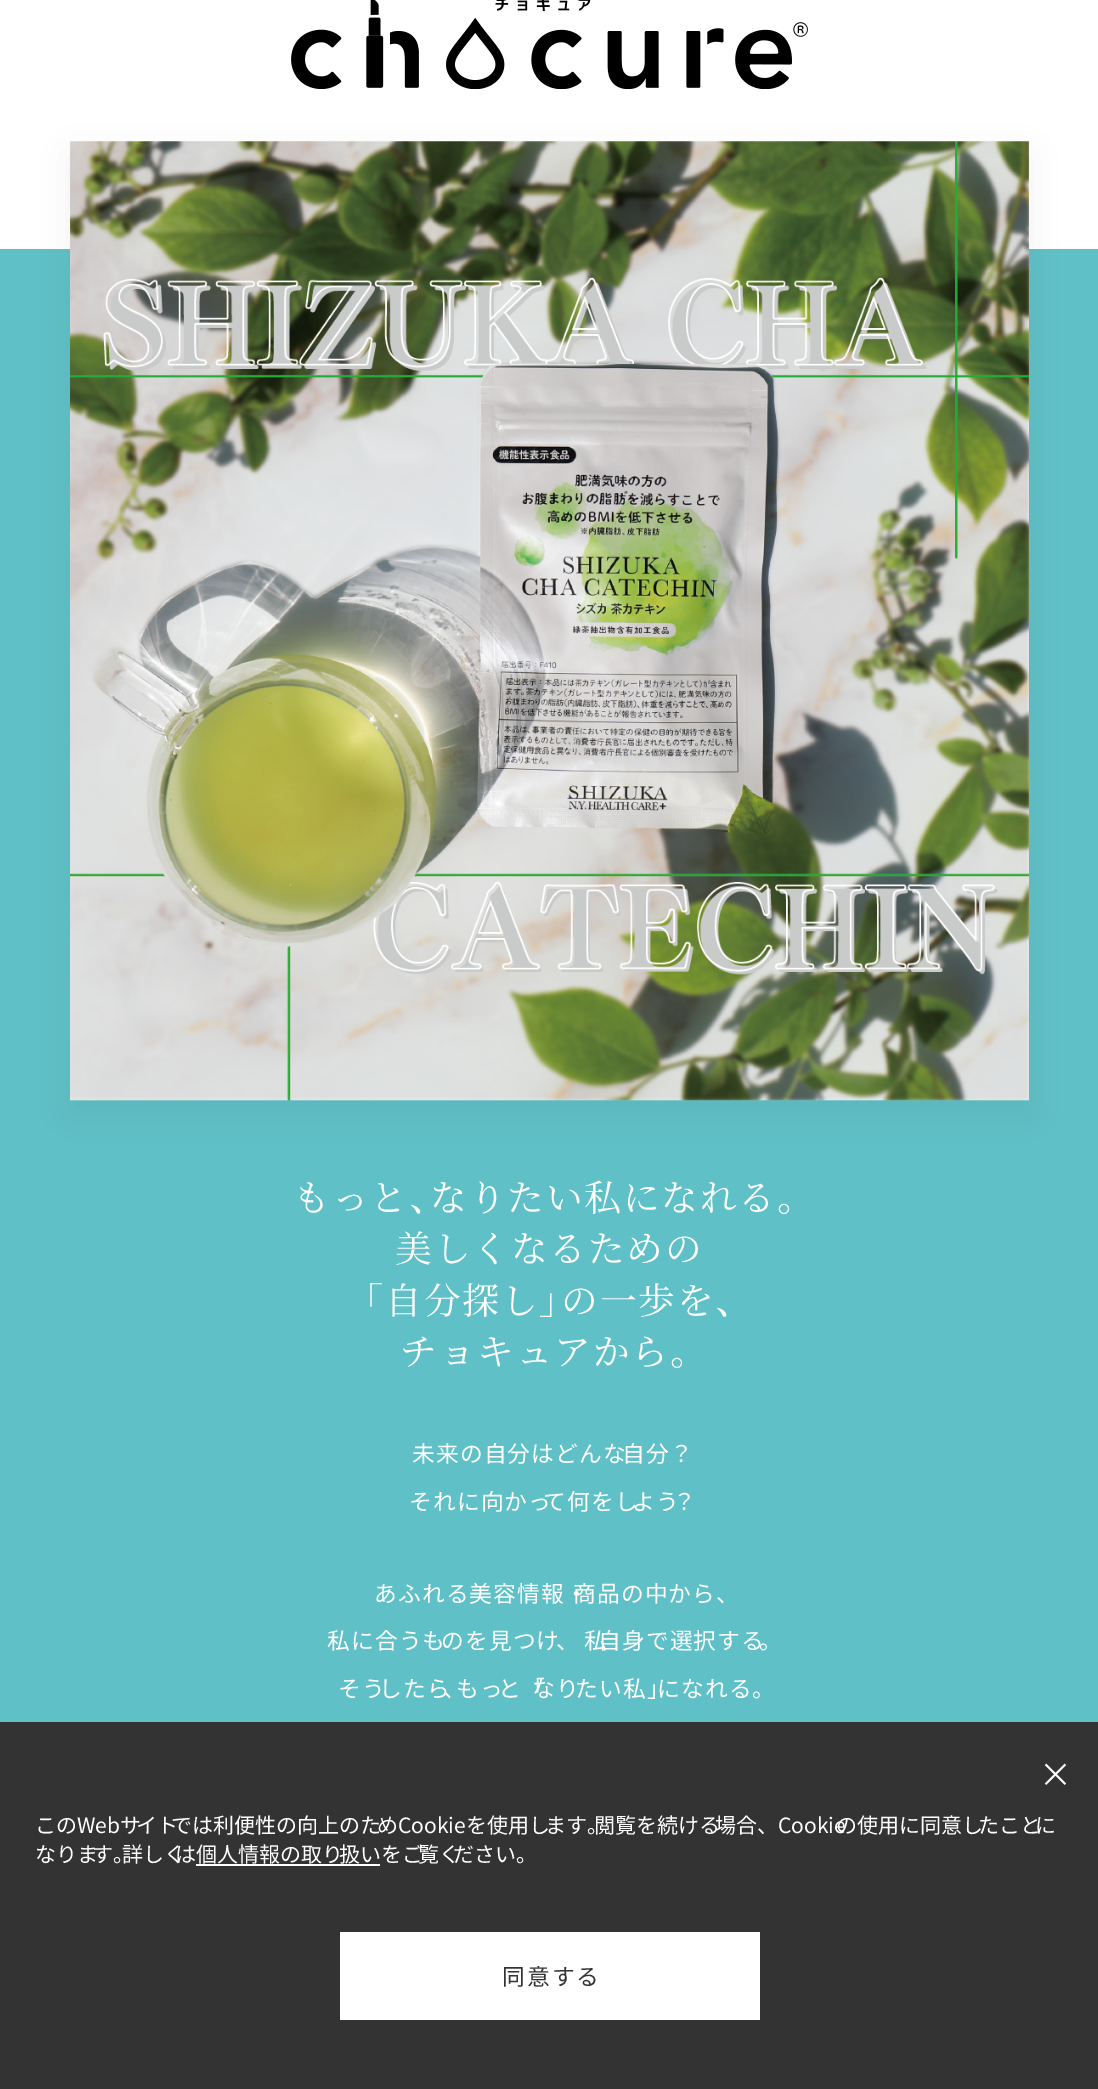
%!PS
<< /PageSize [1098 2089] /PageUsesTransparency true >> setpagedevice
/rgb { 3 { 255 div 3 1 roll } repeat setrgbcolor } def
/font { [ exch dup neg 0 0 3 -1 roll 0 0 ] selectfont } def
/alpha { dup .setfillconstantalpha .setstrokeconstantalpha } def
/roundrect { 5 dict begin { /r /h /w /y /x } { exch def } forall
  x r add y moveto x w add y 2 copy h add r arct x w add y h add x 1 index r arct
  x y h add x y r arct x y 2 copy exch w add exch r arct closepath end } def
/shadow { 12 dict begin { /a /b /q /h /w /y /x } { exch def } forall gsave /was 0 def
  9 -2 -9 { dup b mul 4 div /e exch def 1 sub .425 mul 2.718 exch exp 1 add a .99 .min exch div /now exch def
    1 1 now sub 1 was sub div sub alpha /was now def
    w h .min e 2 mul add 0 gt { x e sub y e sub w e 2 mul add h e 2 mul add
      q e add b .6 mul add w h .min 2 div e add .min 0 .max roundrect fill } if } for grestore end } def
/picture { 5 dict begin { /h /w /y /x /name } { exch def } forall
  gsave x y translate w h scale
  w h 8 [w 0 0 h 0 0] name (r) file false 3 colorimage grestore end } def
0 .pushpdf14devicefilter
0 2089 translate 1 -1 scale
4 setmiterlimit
255 255 255 rgb
0 0 1098 2089 rectfill
95 192 199 rgb
0 249 1098 1473 rectfill
(img/1.rgb) 291 0 517 89 picture
0 0 0 rgb
70 154 959 959 0 17.5 0.05 shadow
(img/2.rgb) 70 141 959 960 picture
51 51 51 rgb
0 1722 1098 367 rectfill
(img/3.rgb) 1044 1763 23 22 picture
255 255 255 rgb
196 1864 184 2 rectfill
340 1932 420 88 rectfill
/NotoSerifJP-Regular 36.75 font
293 1211 moveto 1.75 0 (もっと) ashow
/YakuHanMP-Medium 36.75 font
409 1211 moveto 1.75 0 (、) ashow
/NotoSerifJP-Regular 36.75 font
430 1211 moveto 1.75 0 (なりたい私になれる) ashow
/YakuHanMP-Medium 36.75 font
777 1211 moveto 1.75 0 (。) ashow
/NotoSerifJP-Regular 36.75 font
395 1262 moveto 1.75 0 (美しくなるための) ashow
/YakuHanMP-Medium 36.75 font
363 1314 moveto 1.75 0 (「) ashow
/NotoSerifJP-Regular 36.75 font
385 1314 moveto 1.75 0 (自分探し) ashow
/YakuHanMP-Medium 36.75 font
539 1314 moveto 1.75 0 (」) ashow
/NotoSerifJP-Regular 36.75 font
561 1314 moveto 1.75 0 (の一歩を) ashow
/YakuHanMP-Medium 36.75 font
715 1314 moveto 1.75 0 (、) ashow
/NotoSerifJP-Regular 36.75 font
400 1365 moveto 1.75 0 (チョキュアから) ashow
/YakuHanMP-Medium 36.75 font
670 1365 moveto 1.75 0 (。) ashow
/NotoSansJP-Regular 22.75 font
412 1462 moveto 1.1 0 (未来の自分はどんな) ashow
622 1462 moveto 1.1 0 (自分？) ashow
409 1510 moveto 1.1 0 (それに向かっ) ashow
543 1510 moveto 1.1 0 (て何をし) ashow
632 1510 moveto 1.1 0 (よう) ashow
673 1510 moveto 1.1 0 (？) ashow
374 1602 moveto 1.1 0 (あふれる美容情報・) ashow
573 1602 moveto 1.1 0 (商品の中から、) ashow
327 1649 moveto 1.1 0 (私に合うも) ashow
441 1649 moveto 1.1 0 (のを見つけ) ashow
556 1649 moveto 1.1 0 (、) ashow
584 1649 moveto 1.1 0 (私) ashow
598 1649 moveto 1.1 0 (自身で選択する) ashow
759 1649 moveto 1.1 0 (。) ashow
338 1697 moveto 1.1 0 (そう) ashow
379 1697 moveto 1.1 0 (したら) ashow
443 1697 moveto 1.1 0 (、) ashow
456 1697 moveto 1.1 0 (もっ) ashow
498 1697 moveto 1.1 0 (と「) ashow
532 1697 moveto 1.1 0 (なり) ashow
575 1697 moveto 1.1 0 (たい私」) ashow
657 1697 moveto 1.1 0 (になれる。) ashow
/NotoSansJP-Regular 21 font
35 1833 moveto (このWebサ) show
136 1833 moveto (イト) show
171 1833 moveto (では利便性の向上のた) show
377 1833 moveto (めCookieを使用し) show
545 1833 moveto (ます。) show
594 1833 moveto (閲覧を続ける) show
715 1833 moveto (場合、Cookie) show
836 1833 moveto (の使用に同意し) show
978 1833 moveto (たこと) show
1035 1833 moveto (に) show
35 1862 moveto (なりま) show
92 1862 moveto (す。) show
122 1862 moveto (詳しく) show
175 1862 moveto (は個人情報の取り) show
339 1862 moveto (扱いをご) show
418 1862 moveto (覧く) show
453 1862 moveto (ださい。) show
/NotoSansJP-Regular 22.75 font
51 51 51 rgb
502 1985 moveto 2 0 (同意する) ashow
.poppdf14devicefilter showpage
